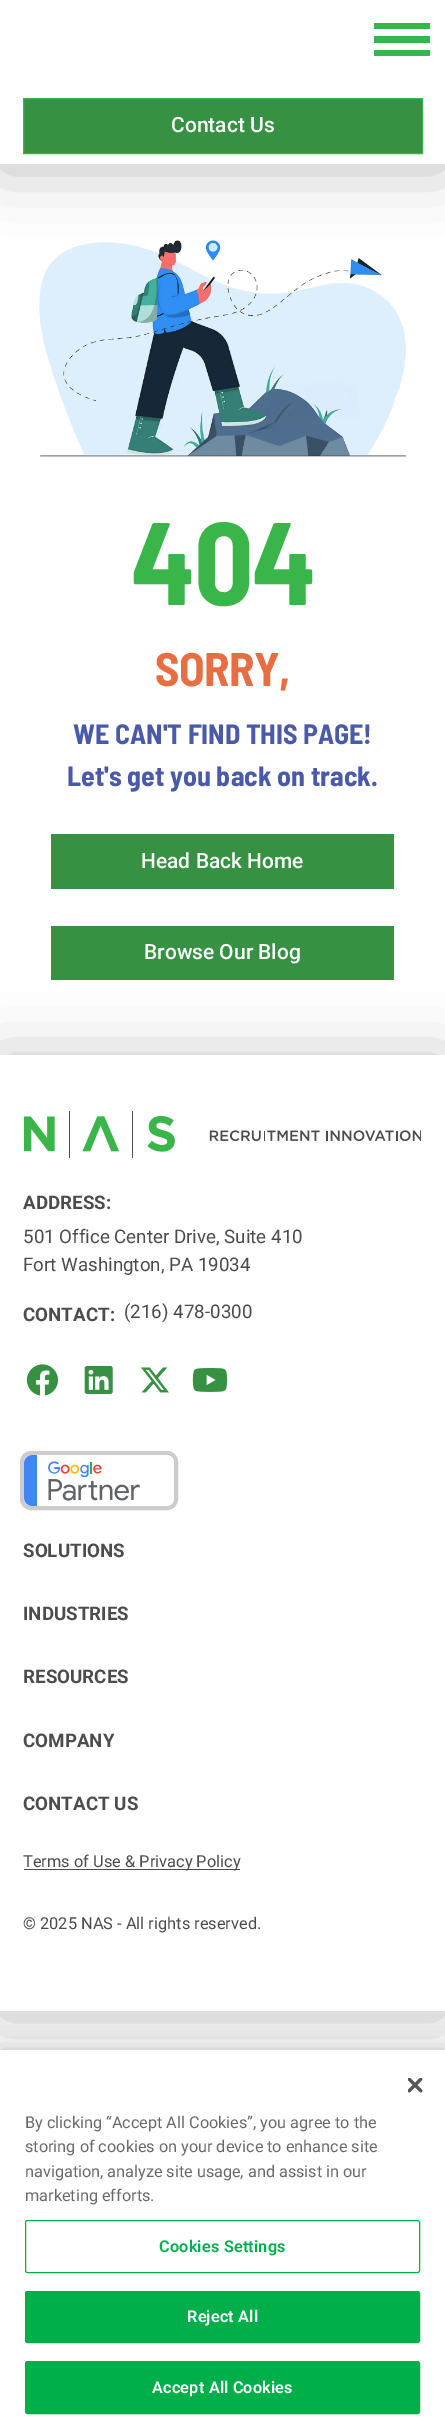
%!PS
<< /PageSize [445 2432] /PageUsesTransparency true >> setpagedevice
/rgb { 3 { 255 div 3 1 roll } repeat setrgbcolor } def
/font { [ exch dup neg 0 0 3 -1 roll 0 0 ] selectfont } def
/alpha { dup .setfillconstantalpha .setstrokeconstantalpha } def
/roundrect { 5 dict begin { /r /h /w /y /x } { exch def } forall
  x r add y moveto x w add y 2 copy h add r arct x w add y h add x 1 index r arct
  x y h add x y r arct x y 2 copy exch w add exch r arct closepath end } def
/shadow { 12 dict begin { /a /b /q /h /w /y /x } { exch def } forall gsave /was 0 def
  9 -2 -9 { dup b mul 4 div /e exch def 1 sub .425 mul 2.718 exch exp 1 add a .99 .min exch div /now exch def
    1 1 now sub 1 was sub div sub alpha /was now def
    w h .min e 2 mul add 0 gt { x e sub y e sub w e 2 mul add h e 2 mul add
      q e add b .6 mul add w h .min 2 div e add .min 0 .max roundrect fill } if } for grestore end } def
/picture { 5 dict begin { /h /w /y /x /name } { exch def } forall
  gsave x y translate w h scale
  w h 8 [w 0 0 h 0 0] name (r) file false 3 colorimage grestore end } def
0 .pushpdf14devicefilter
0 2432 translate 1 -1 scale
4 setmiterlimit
255 255 255 rgb
0 0 445 2432 rectfill
(img/1.rgb) 39 239 368 218 picture
0 0 0 rgb
0 5 445 164 0 31 0.25 shadow
[
  [0 0 445 164 255 255 255]
  [374 23 56 6 57 181 74]
  [374 36 56 7 57 181 74]
  [374 50 56 6 57 181 74]
] { aload pop rgb rectfill } forall
54 145 67 rgb
23.5 98.5 moveto 422.5 98.5 lineto 422.5 153.5 lineto 23.5 153.5 lineto closepath gsave fill grestore
57 181 74 rgb
stroke
54 145 67 rgb
51 834 343 55 rectfill
gsave
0 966 moveto 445 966 lineto 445 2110 lineto 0 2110 lineto closepath 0 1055 moveto 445 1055 lineto 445 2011 lineto 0 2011 lineto closepath eoclip newpath
0 0 0 rgb
0 1060 445 956 0 31 0.25 shadow
grestore
51 926 343 54 rectfill
(img/2.rgb) 24 1111 397 47 picture
(img/3.rgb) 26 1364 33 32 picture
(img/4.rgb) 84 1365 29 29 picture
(img/5.rgb) 141 1367 28 26 picture
(img/6.rgb) 192 1368 36 24 picture
204 204 204 rgb
4 setlinewidth
22 1453 154 55 9 roundrect stroke
(img/7.rgb) 24 1455 150 51 picture
76 76 76 rgb
24 1869 216 1 rectfill
0 0 0 rgb
0 2050 445 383 0 11 0.2 shadow
255 255 255 rgb
0 2050 445 382 rectfill
(img/8.rgb) 408 2078 15 15 picture
0 175 74 rgb
1 setlinewidth
25.5 2220.5 394 52 2 roundrect stroke
25.5 2291.5 394 51 2 roundrect gsave fill grestore
stroke
25.5 2361.5 394 52 2 roundrect gsave fill grestore
stroke
/Roboto-Medium 21 font
255 255 255 rgb
171 132 moveto (Contact Us) show
/BarlowSemiCondensed-Bold 117 font
57 181 74 rgb
131 605 moveto -1 0 (404) ashow
/BarlowSemiCondensed-Bold 47 font
231 109 66 rgb
155 686 moveto -0.5 0 (SORRY,) ashow
/BarlowSemiCondensed-Bold 28 font
74 90 168 rgb
73 744 moveto (WE CAN'T FIND THIS PAGE!) show
67 786 moveto (Let's get you back on track.) show
/Roboto-Medium 21 font
255 255 255 rgb
141 868 moveto (Head Back Home) show
144 959 moveto (Browse Our Blog) show
/Roboto-Bold 18.75 font
76 76 76 rgb
23 1209 moveto (ADDRESS:) show
/Roboto-Regular 18.75 font
23 1243 moveto (501 Office Center Drive, Suite 410) show
23 1271 moveto (Fort Washington, PA 19034) show
/Roboto-Bold 18.75 font
23 1321 moveto (CONTACT:) show
/Roboto-Regular 18.75 font
124 1318 moveto (\(216\) 478-0300) show
/Roboto-Bold 18.75 font
[
  [(SOLUTIONS) 23 1557]
  [(INDUSTRIES) 23 1620]
  [(RESOURCES) 23 1683]
  [(COMPANY) 23 1747]
  [(CONTACT US) 23 1810]
] { aload pop moveto show } forall
/Roboto-Regular 16.4 font
23 1867 moveto (Terms of Use & Privacy Policy) show
23 1929 moveto (© 2025 NAS - All rights reserved.) show
/Roboto-Regular 16.25 font
105 105 105 rgb
[
  [(By clicking “Accept All Cookies”, you agree to the) 25 2128]
  [(storing of cookies on your device to enhance site) 25 2152]
  [(navigation, analyze site usage, and assist in our) 25 2177]
  [(marketing efforts.) 25 2201]
] { aload pop moveto show } forall
/Roboto-SemiBold 16.25 font
0 175 74 rgb
159 2252 moveto 0.2 0 (Cookies Settings) ashow
255 255 255 rgb
187 2322 moveto 0.2 0 (Reject All) ashow
152 2393 moveto 0.2 0 (Accept All Cookies) ashow
.poppdf14devicefilter showpage
